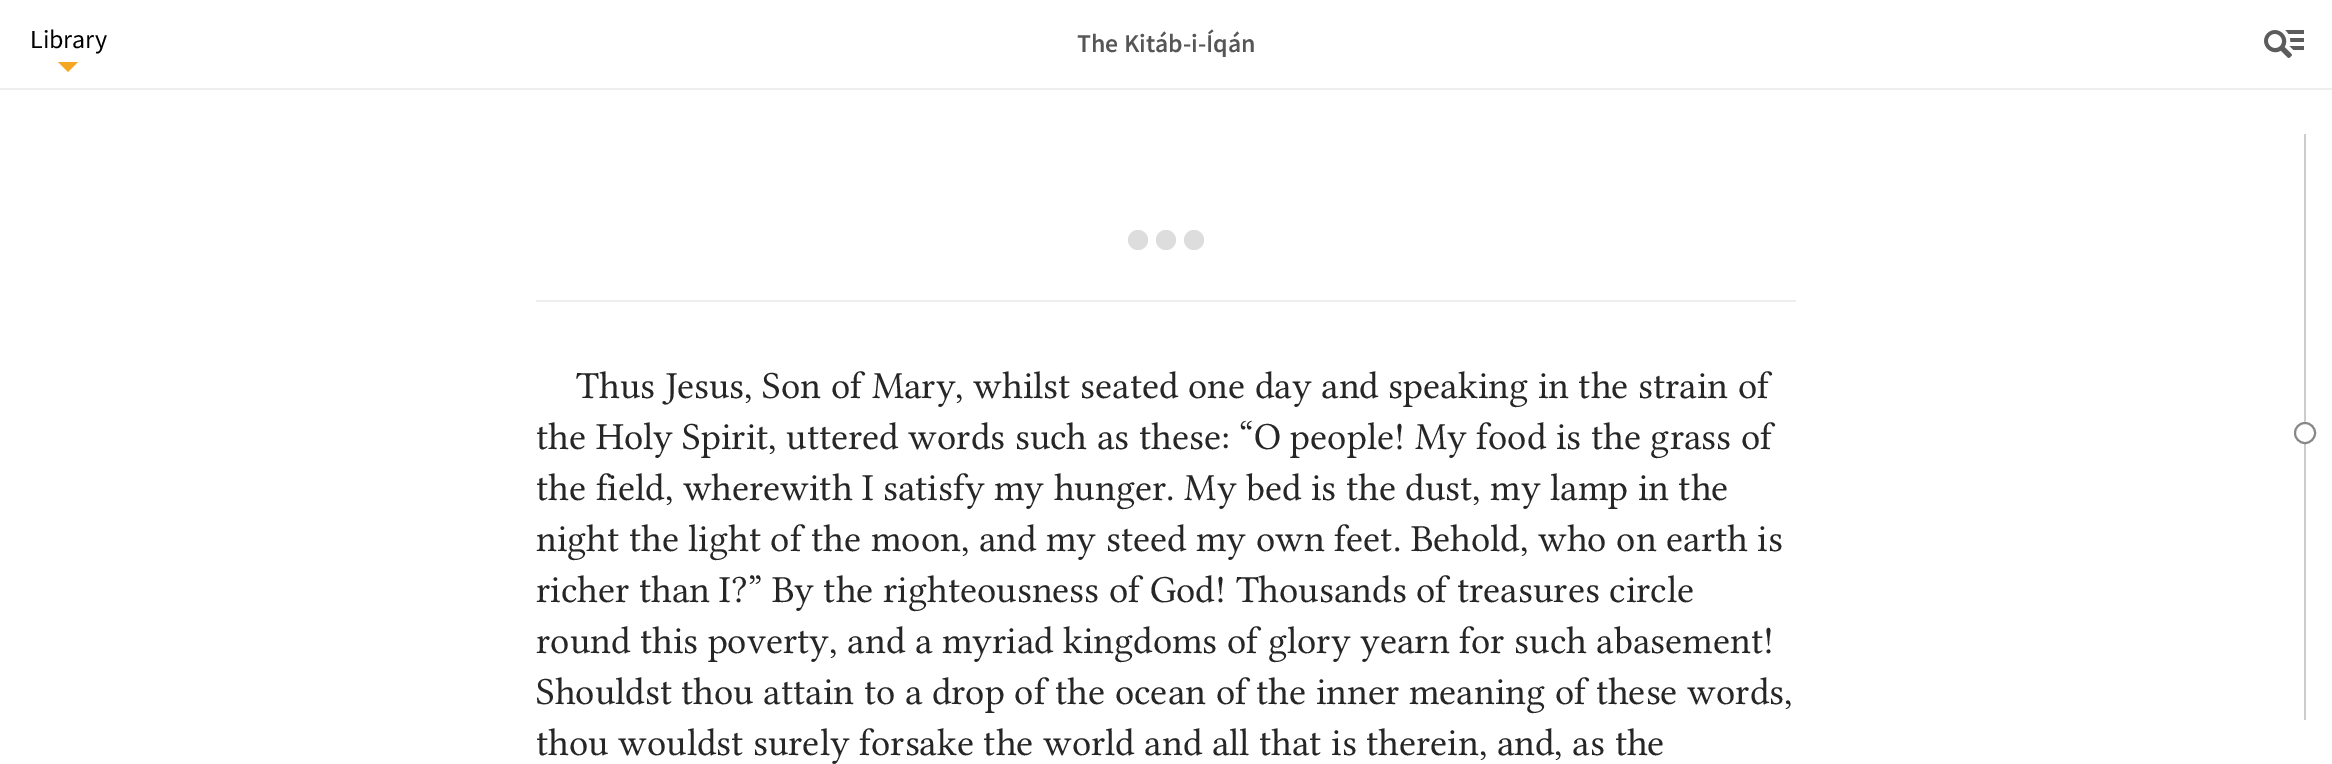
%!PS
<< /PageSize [2332 764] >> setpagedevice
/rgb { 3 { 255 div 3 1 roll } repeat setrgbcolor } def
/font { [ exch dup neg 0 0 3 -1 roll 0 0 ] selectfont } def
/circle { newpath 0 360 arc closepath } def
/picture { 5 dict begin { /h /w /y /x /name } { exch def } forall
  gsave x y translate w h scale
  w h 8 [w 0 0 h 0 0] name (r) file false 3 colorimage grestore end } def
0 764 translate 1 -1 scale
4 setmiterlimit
255 255 255 rgb
0 0 2332 764 rectfill
238 238 238 rgb
0 88 2332 2 rectfill
245 166 35 rgb
58 62 moveto 78 62 lineto 68 72 lineto closepath fill
(img/1.rgb) 2264 30 40 28 picture
238 238 238 rgb
536 300 1260 2 rectfill
221 221 221 rgb
1138 240 10 circle fill
1166 240 10 circle fill
1194 240 10 circle fill
204 204 204 rgb
2304 134 2 586 rectfill
255 255 255 rgb
2305 433 10 circle gsave fill grestore
136 136 136 rgb
2 setlinewidth
stroke
/SourceSansPro-Regular 26 font
0 0 0 rgb
30 48 moveto (Library) show
/SourceSansPro-SemiBold 26 font
86 86 86 rgb
1077 52 moveto (The Kitáb-i-Íqán) show
/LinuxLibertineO-Regular 34 font
38 38 38 rgb
[
  [(Thus Jesus, Son of Mary, whilst seated one day and speaking in the strain of) 576 398]
  [(the Holy Spirit, uttered words such as these: “O people! My food is the grass of) 536 449]
  [(the field, wherewith I satisfy my hunger. My bed is the dust, my lamp in the) 536 500]
  [(night the light of the moon, and my steed my own feet. Behold, who on earth is) 536 551]
  [(richer than I?” By the righteousness of God! Thousands of treasures circle) 536 602]
  [(round this poverty, and a myriad kingdoms of glory yearn for such abasement!) 536 653]
  [(Shouldst thou attain to a drop of the ocean of the inner meaning of these words,) 536 704]
  [(thou wouldst surely forsake the world and all that is therein, and, as the) 536 755]
] { aload pop moveto show } forall
showpage
